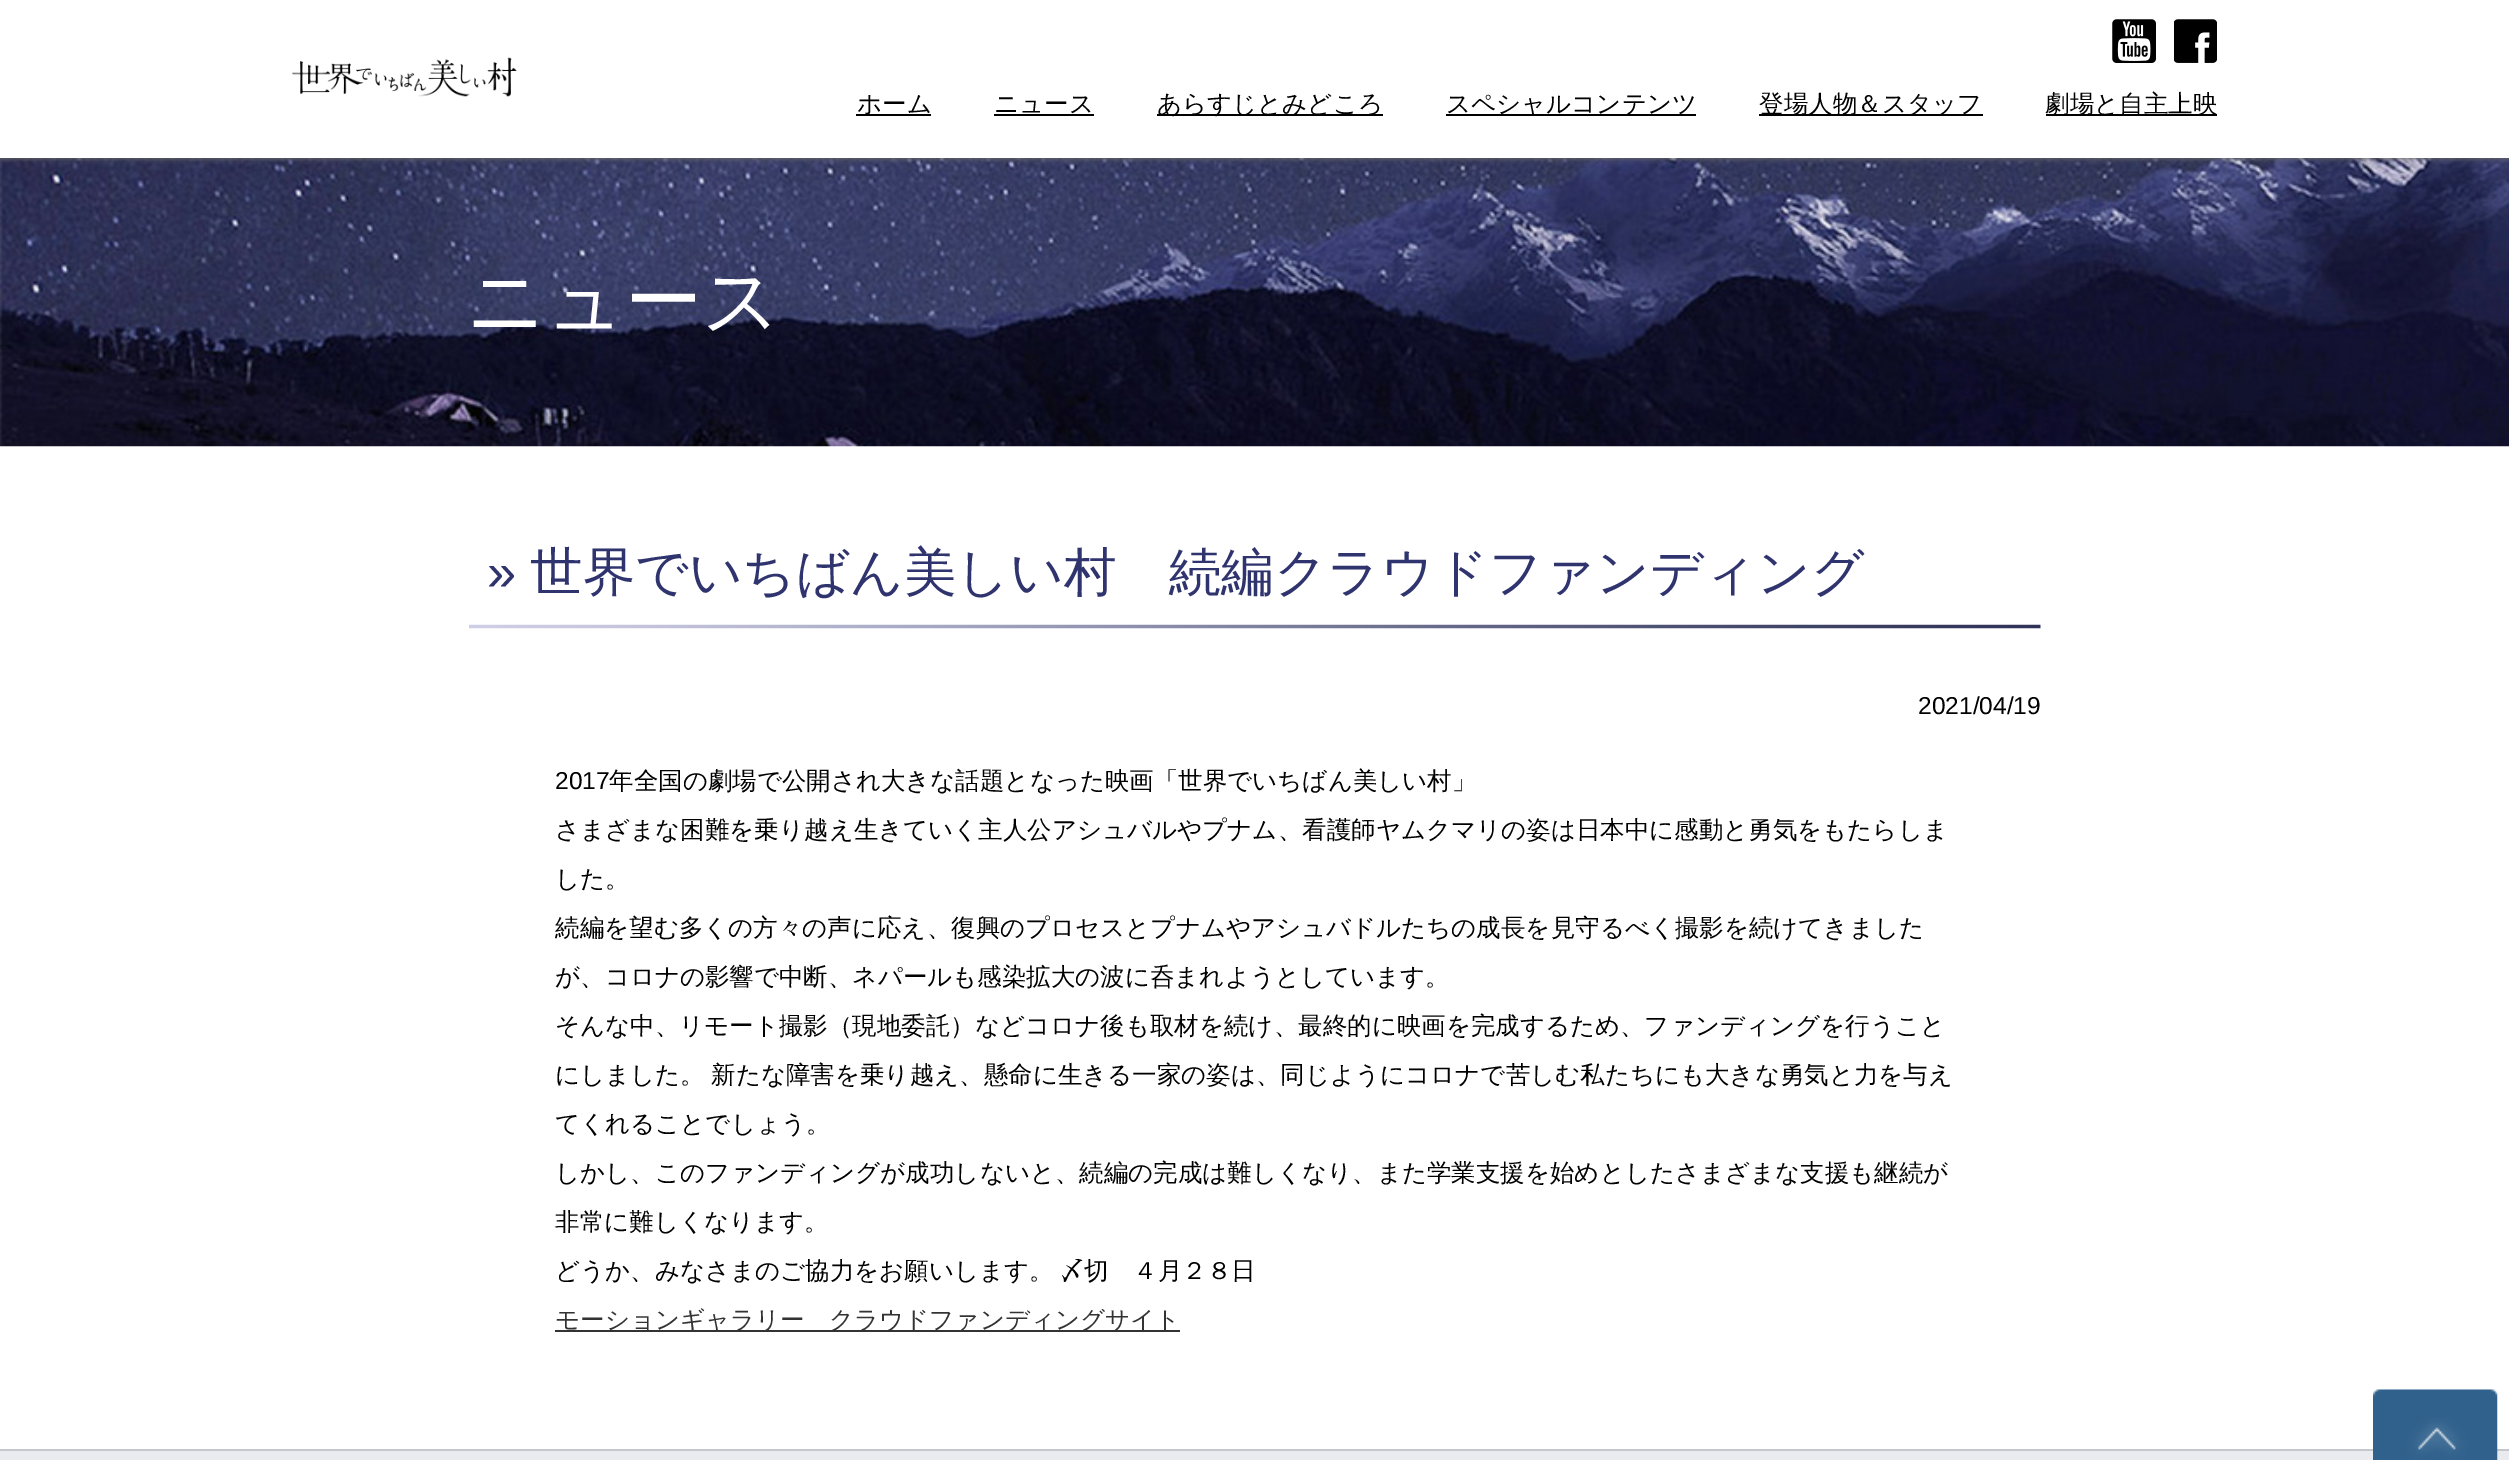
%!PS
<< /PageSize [2509 1460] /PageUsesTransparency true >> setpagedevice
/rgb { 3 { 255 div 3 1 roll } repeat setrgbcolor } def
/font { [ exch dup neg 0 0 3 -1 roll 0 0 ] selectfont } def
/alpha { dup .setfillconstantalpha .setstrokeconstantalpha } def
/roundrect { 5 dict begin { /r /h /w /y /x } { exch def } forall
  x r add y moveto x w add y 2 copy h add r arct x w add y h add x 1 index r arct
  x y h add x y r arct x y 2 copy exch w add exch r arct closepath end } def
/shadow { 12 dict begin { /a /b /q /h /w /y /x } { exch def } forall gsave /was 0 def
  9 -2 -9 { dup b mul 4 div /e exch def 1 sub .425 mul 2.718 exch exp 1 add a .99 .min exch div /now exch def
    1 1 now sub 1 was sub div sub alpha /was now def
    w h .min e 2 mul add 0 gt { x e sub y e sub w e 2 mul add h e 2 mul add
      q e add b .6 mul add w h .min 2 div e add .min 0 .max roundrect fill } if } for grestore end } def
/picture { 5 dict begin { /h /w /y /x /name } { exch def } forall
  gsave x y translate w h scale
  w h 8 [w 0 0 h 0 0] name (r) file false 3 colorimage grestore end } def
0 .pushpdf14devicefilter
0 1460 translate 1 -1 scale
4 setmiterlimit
255 255 255 rgb
0 0 2509 1460 rectfill
(img/4.rgb) 0 158 2509 289 picture
102 102 102 rgb
0 2 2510 157 0 2.5 1 shadow
255 255 255 rgb
0 0 2509 158 rectfill
(img/1.rgb) 2112 19 44 44 picture
(img/2.rgb) 2174 19 43 44 picture
(img/3.rgb) 292 57 225 40 picture
[
  [856 114 75 2 0 0 0]
  [994 114 100 2 0 0 0]
  [1157 114 226 2 0 0 0]
  [1446 114 250 2 0 0 0]
  [1759 114 224 2 0 0 0]
  [2046 114 171 2 0 0 0]
] { aload pop rgb rectfill } forall
(img/5.rgb) 469 624 1572 5 picture
[
  [555 1330 625 2 51 51 51]
  [0 1451 2509 9 233 235 239]
  [0 1449 2509 2 196 200 206]
] { aload pop rgb rectfill } forall
(img/6.rgb) 2373 1389 125 71 picture
/WenQuanYiZenHei-Medium 24.5 font
0 0 0 rgb
[
  [(ホーム) 857 112]
  [(ニュース) 994 112]
  [(あらすじとみどころ) 1157 112]
  [(スペシャルコンテンツ) 1446 112]
  [(登場人物＆スタッフ) 1759 112]
  [(劇場と自主上映) 2045 112]
] { aload pop moveto show } forall
/WenQuanYiZenHei-Medium 77 font
255 255 255 rgb
467 327 moveto (ニュース) show
/LiberationSans-Regular 52.5 font
47 51 110 rgb
487 590 moveto (») show
/WenQuanYiZenHei-Medium 52.5 font
530 590 moveto (世界でいちばん美しい村　続編クラウドファンディング) show
/LiberationSans-Regular 24.5 font
0 0 0 rgb
1918 714 moveto (2021/04/19) show
555 789 moveto (2017) show
/WenQuanYiZenHei-Medium 24.5 font
[
  [(年全国の劇場で公開され大きな話題となった映画「世界でいちばん美しい村」) 609 789]
  [(さまざまな困難を乗り越え生きていく主人公アシュバルやプナム、看護師ヤムクマリの姿は日本中に感動と勇気をもたらしま) 555 838]
  [(した。) 555 887]
  [(続編を望む多くの方々の声に応え、復興のプロセスとプナムやアシュバドルたちの成長を見守るべく撮影を続けてきました) 555 936]
  [(が、コロナの影響で中断、ネパールも感染拡大の波に呑まれようとしています。) 555 985]
  [(そんな中、リモート撮影（現地委託）などコロナ後も取材を続け、最終的に映画を完成するため、ファンディングを行うこと) 555 1034]
] { aload pop moveto show } forall
555 1083 moveto -1 0 32 (にしました。 新たな障害を乗り越え、懸命に生きる一家の姿は、同じようにコロナで苦しむ私たちにも大きな勇気と力を与え) widthshow
[
  [(てくれることでしょう。) 555 1132]
  [(しかし、このファンディングが成功しないと、続編の完成は難しくなり、また学業支援を始めとしたさまざまな支援も継続が) 555 1181]
  [(非常に難しくなります。) 555 1230]
] { aload pop moveto show } forall
555 1279 moveto -1 0 32 (どうか、みなさまのご協力をお願いします。 〆切　４月２８日) widthshow
51 51 51 rgb
555 1328 moveto (モーションギャラリー　クラウドファンディングサイト) show
.poppdf14devicefilter showpage
